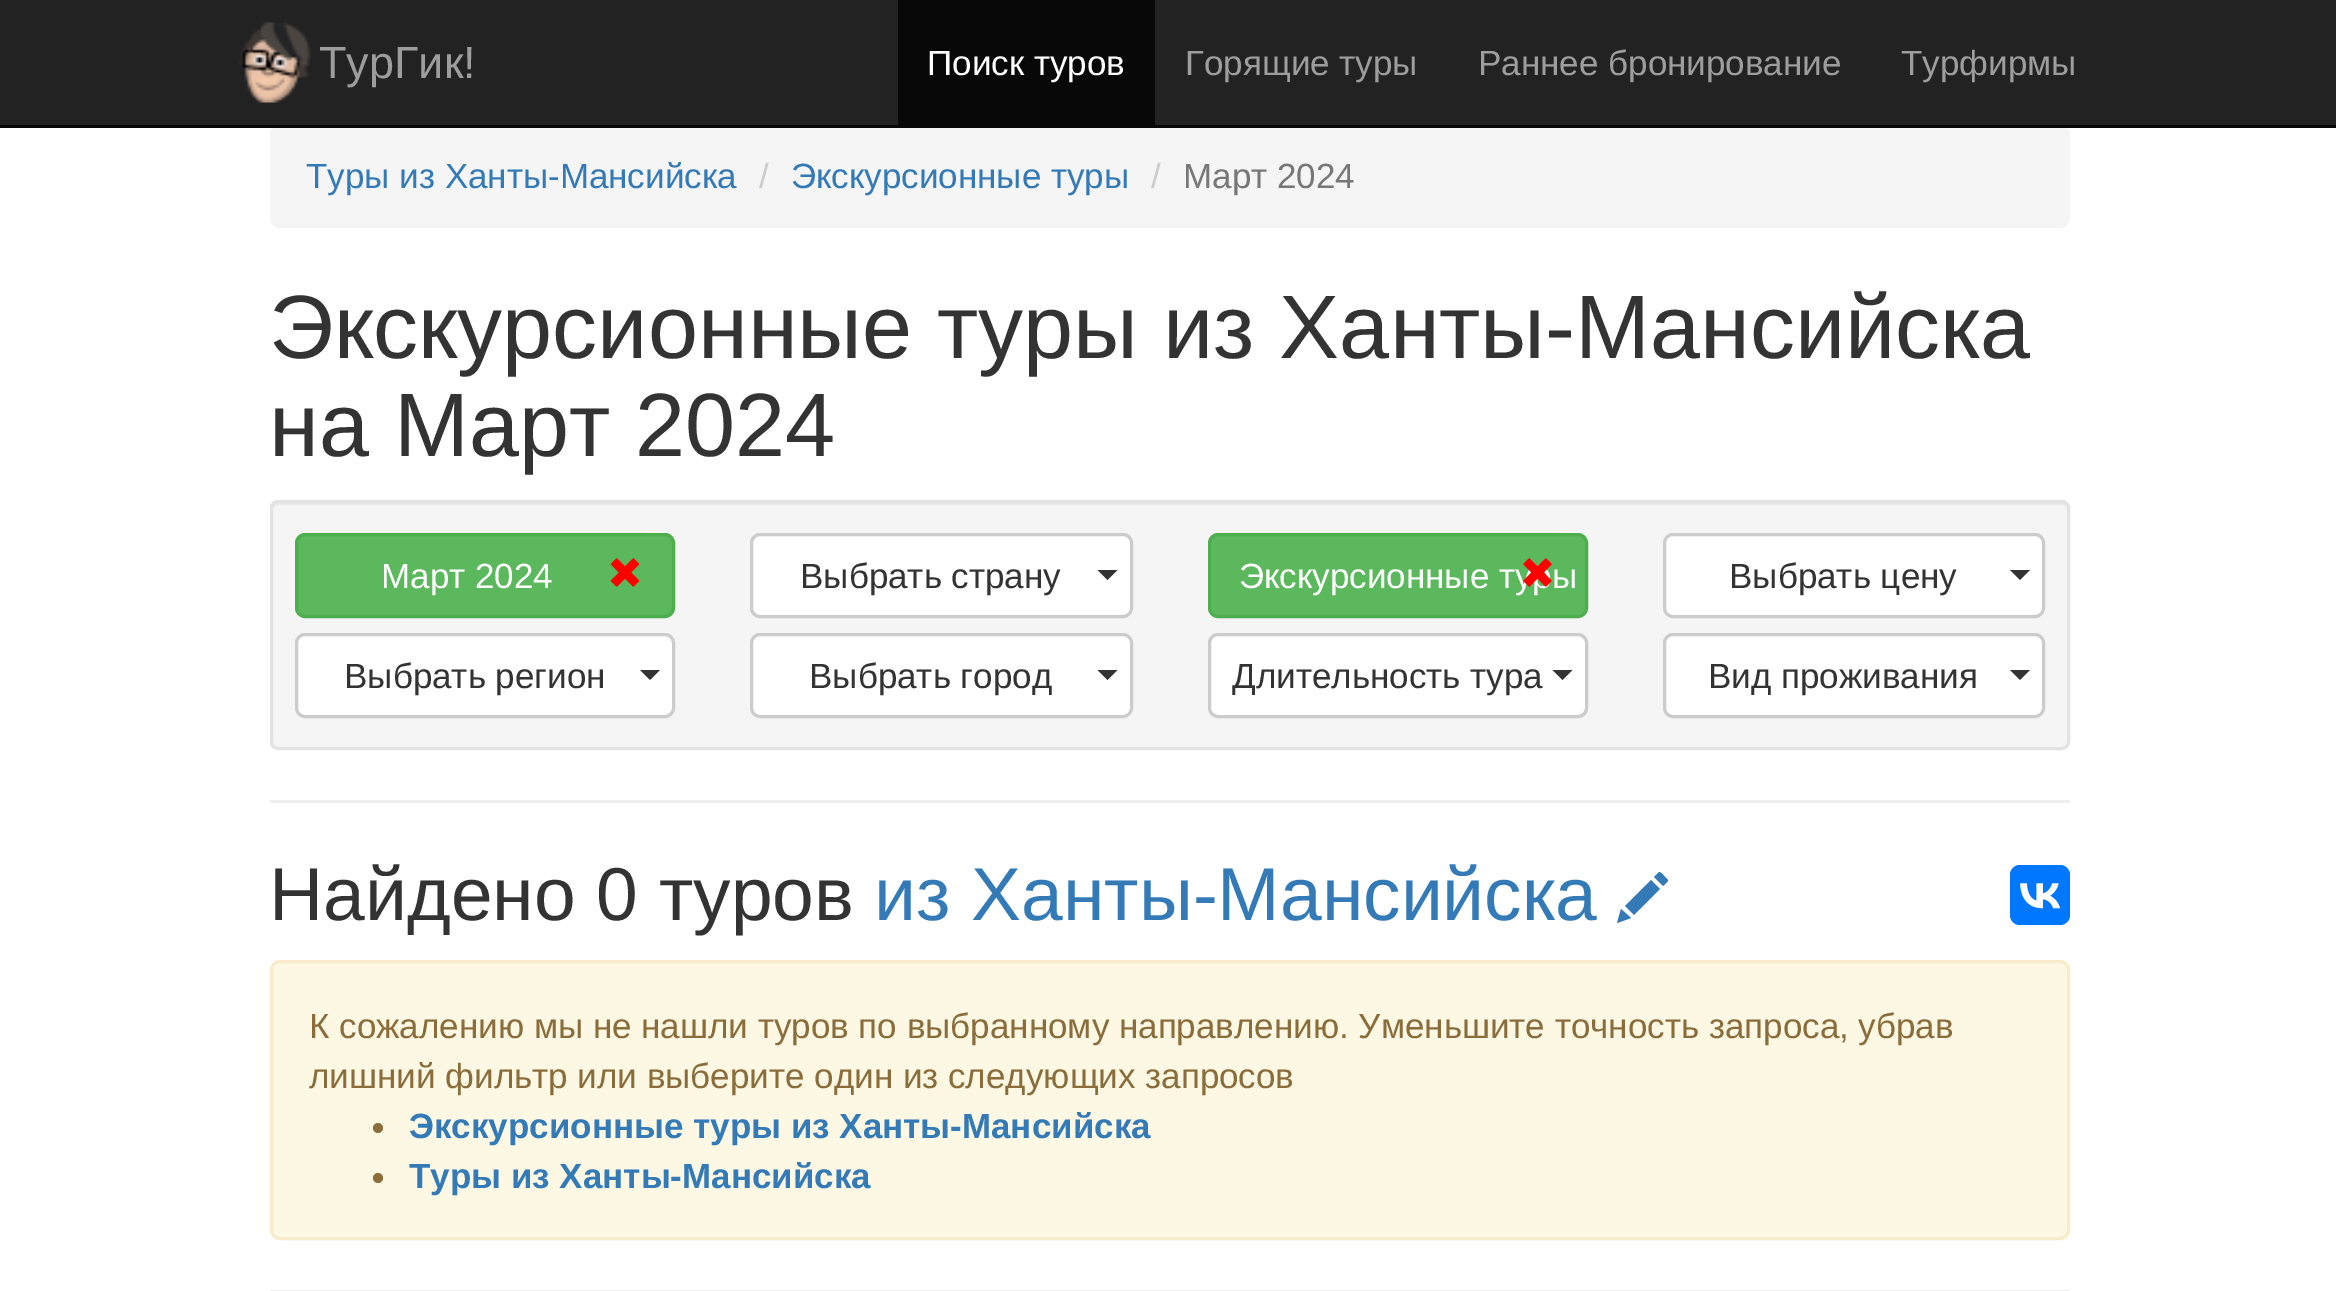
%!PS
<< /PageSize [2336 1291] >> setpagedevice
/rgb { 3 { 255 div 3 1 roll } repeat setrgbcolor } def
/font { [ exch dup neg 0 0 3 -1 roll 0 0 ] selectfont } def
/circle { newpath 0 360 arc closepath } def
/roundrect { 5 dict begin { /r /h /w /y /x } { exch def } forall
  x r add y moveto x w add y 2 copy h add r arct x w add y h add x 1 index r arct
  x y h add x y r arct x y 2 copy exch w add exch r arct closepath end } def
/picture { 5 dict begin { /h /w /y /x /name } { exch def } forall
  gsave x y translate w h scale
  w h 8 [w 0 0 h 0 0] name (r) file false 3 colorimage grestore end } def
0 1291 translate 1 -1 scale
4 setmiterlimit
255 255 255 rgb
0 0 2336 1291 rectfill
34 34 34 rgb
0 0 2336 125 rectfill
245 245 245 rgb
270 125 1800 103 10 roundrect fill
8 8 8 rgb
0 125 2336 3 rectfill
(img/1.rgb) 238 22 73 81 picture
898 0 257 125 rectfill
245 245 245 rgb
270 500 1800 250 8 roundrect fill
233 233 233 rgb
278 505 moveto 2062 505 lineto 2065 505 2068 507 2068 510 curveto 2068 508 lineto 2068 505 2066 503 2063 503 curveto 278 503 lineto 276 503 273 505 273 507 curveto 274 506 276 505 278 505 curveto closepath fill
227 227 227 rgb
3 setlinewidth
271.5 501.5 1797 247 6.5 roundrect stroke
92 184 92 rgb
296.5 534.5 377 82 8.5 roundrect gsave fill grestore
76 174 76 rgb
stroke
(img/2.rgb) 610 558 30 29 picture
255 255 255 rgb
296.5 634.5 377 82 8.5 roundrect gsave fill grestore
204 204 204 rgb
stroke
51 51 51 rgb
640 670 moveto 660 670 lineto 650 680 lineto closepath fill
255 255 255 rgb
751.5 534.5 380 82 8.5 roundrect gsave fill grestore
204 204 204 rgb
stroke
51 51 51 rgb
1097.5 570 moveto 1117.5 570 lineto 1107.5 580 lineto closepath fill
255 255 255 rgb
751.5 634.5 380 82 8.5 roundrect gsave fill grestore
204 204 204 rgb
stroke
51 51 51 rgb
1097.5 670 moveto 1117.5 670 lineto 1107.5 680 lineto closepath fill
92 184 92 rgb
1209.5 534.5 377 82 8.5 roundrect gsave fill grestore
76 174 76 rgb
stroke
255 255 255 rgb
1209.5 634.5 377 82 8.5 roundrect gsave fill grestore
204 204 204 rgb
stroke
51 51 51 rgb
1552.5 670 moveto 1572.5 670 lineto 1562.5 680 lineto closepath fill
255 255 255 rgb
1664.5 534.5 379 82 8.5 roundrect gsave fill grestore
204 204 204 rgb
stroke
51 51 51 rgb
2010 570 moveto 2030 570 lineto 2020 580 lineto closepath fill
255 255 255 rgb
1664.5 634.5 379 82 8.5 roundrect gsave fill grestore
204 204 204 rgb
stroke
51 51 51 rgb
2010 670 moveto 2030 670 lineto 2020 680 lineto closepath fill
238 238 238 rgb
270 800 1800 3 rectfill
51 122 183 rgb
1658 873 moveto 1660 870 1664 876 1665 877 curveto 1670 881 1668 881 1663 886 curveto 1654 877 lineto closepath 1660 889 moveto 1634 915 lineto 1625 906 lineto 1651 880 lineto closepath 1631 918 moveto 1617 923 lineto 1621 909 lineto closepath fill
0 119 255 rgb
2010 865 60 60 10 roundrect fill
(img/4.rgb) 2020 883 41 26 picture
252 248 227 rgb
271.5 961.5 1797 277 8.5 roundrect gsave fill grestore
250 235 204 rgb
stroke
138 109 59 rgb
378 1128 5 circle fill
378 1178 5 circle fill
238 238 238 rgb
270 1290 1800 1 rectfill
/LiberationSans-Regular 45 font
157 157 157 rgb
319 78 moveto (ТурГик!) show
/LiberationSans-Regular 35 font
255 255 255 rgb
927 75 moveto (Поиск туров) show
157 157 157 rgb
[
  [(Горящие туры) 1185 75]
  [(Раннее бронирование) 1478 75]
  [(Турфирмы) 1901 75]
] { aload pop moveto show } forall
51 122 183 rgb
306 188 moveto (Туры из Ханты-Мансийска) show
204 204 204 rgb
759 188 moveto (/) show
51 122 183 rgb
791 188 moveto (Экскурсионные туры) show
204 204 204 rgb
1151 188 moveto (/) show
119 119 119 rgb
1183 188 moveto (Март 2024) show
/LiberationSans-Regular 90 font
51 51 51 rgb
269 358 moveto (Экскурсионные туры из Ханты-Мансийска) show
269 456 moveto (на Март 2024) show
/LiberationSans-Regular 35 font
255 255 255 rgb
381 588 moveto (Март 2024) show
51 51 51 rgb
[
  [(Выбрать регион) 344 688]
  [(Выбрать страну) 800 588]
  [(Выбрать город) 809 688]
] { aload pop moveto show } forall
255 255 255 rgb
1239 588 moveto (Экскурсионные туры) show
(img/3.rgb) 1523 558 29 29 picture
51 51 51 rgb
[
  [(Длительность тура) 1232 688]
  [(Выбрать цену) 1729 588]
  [(Вид проживания) 1708 688]
] { aload pop moveto show } forall
/LiberationSans-Regular 75 font
269 920 moveto (Найдено 0 туров) show
51 122 183 rgb
874 920 moveto (из Ханты-Мансийска) show
/LiberationSans-Regular 35 font
138 109 59 rgb
309 1038 moveto (К сожалению мы не нашли туров по выбранному направлению. Уменьшите точность запроса, убрав) show
309 1088 moveto (лишний фильтр или выберите один из следующих запросов) show
/LiberationSans-Bold 35 font
51 122 183 rgb
409 1138 moveto (Экскурсионные туры из Ханты-Мансийска) show
409 1188 moveto (Туры из Ханты-Мансийска) show
showpage
